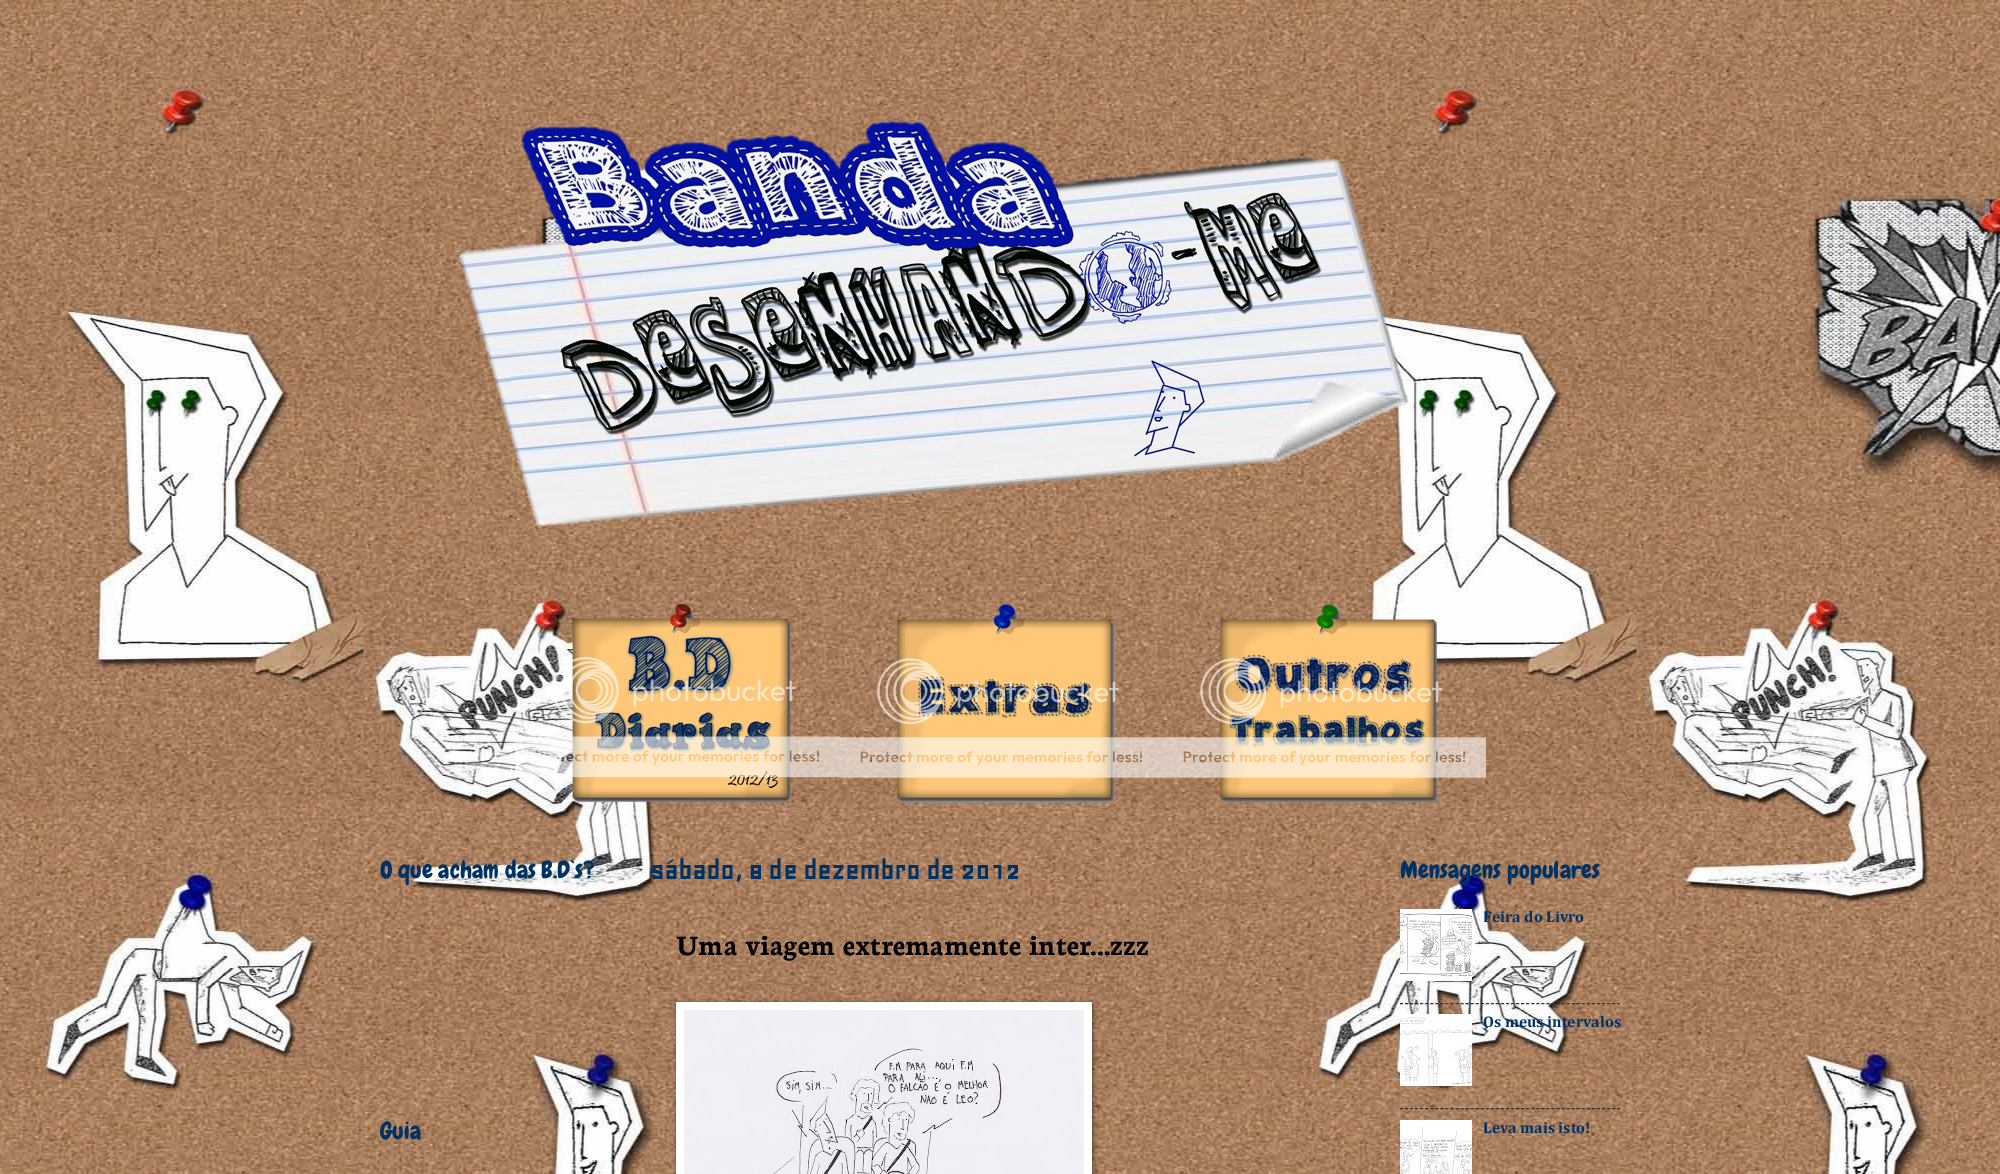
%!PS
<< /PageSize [2000 1174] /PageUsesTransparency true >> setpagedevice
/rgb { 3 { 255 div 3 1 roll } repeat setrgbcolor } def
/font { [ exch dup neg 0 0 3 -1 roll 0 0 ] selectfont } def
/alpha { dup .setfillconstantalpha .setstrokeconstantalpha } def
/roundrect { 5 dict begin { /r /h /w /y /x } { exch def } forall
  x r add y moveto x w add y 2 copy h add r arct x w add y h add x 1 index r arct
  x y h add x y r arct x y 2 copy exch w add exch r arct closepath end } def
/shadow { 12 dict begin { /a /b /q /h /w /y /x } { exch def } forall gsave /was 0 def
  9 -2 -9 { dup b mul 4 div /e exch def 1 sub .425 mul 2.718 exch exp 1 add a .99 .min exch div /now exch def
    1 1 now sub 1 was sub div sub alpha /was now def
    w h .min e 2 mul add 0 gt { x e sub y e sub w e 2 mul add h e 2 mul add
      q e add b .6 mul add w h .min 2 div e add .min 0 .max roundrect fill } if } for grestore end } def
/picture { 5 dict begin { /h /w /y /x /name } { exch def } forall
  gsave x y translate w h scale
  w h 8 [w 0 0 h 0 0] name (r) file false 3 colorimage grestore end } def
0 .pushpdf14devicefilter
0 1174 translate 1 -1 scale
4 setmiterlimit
255 255 255 rgb
0 0 2000 1174 rectfill
(img/1.rgb) 0 0 2000 1174 picture
(img/2.rgb) 458 120 951 407 picture
(img/3.rgb) 515 603 325 200 picture
(img/4.rgb) 840 604 323 199 picture
(img/5.rgb) 1163 604 323 199 picture
gsave
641 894 moveto 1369 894 lineto 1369 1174 lineto 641 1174 lineto closepath 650 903 moveto 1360 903 lineto 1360 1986 lineto 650 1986 lineto closepath eoclip newpath
0 0 0 rgb
650 903 710 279 0 2.5 0.1 shadow
grestore
0 0 0 rgb
677 1003 416 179 0 2.5 0.5 shadow
255 255 255 rgb
676 1002 416 172 rectfill
(img/6.rgb) 684 1010 400 164 picture
(img/7.rgb) 1400 909 72 72 picture
50 50 50 rgb
[3 2.05] 0 setdash
1400 1003.5 moveto 1620 1003.5 lineto stroke
(img/8.rgb) 1400 1014 72 72 picture
1400 1108.5 moveto 1620 1108.5 lineto stroke
(img/9.rgb) 1400 1120 72 54 picture
/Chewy-Regular 24 font
0 50 100 rgb
380 878 moveto (O que acham das B.D`s?) show
380 1139 moveto (Guia) show
/Geo-Bold 30 font
650 879 moveto (sábado, 8 de dezembro de 2012) show
/Neuton-Bold 30 font
0 0 0 rgb
676 955 moveto (Uma viagem extremamente inter...zzz) show
/Chewy-Regular 24 font
0 50 100 rgb
1400 878 moveto (Mensagens populares) show
/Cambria-Bold 15.75 font
[
  [(Feira do Livro) 1483 922]
  [(Os meus intervalos) 1483 1027]
  [(Leva mais isto!) 1483 1133]
] { aload pop moveto show } forall
.poppdf14devicefilter showpage
